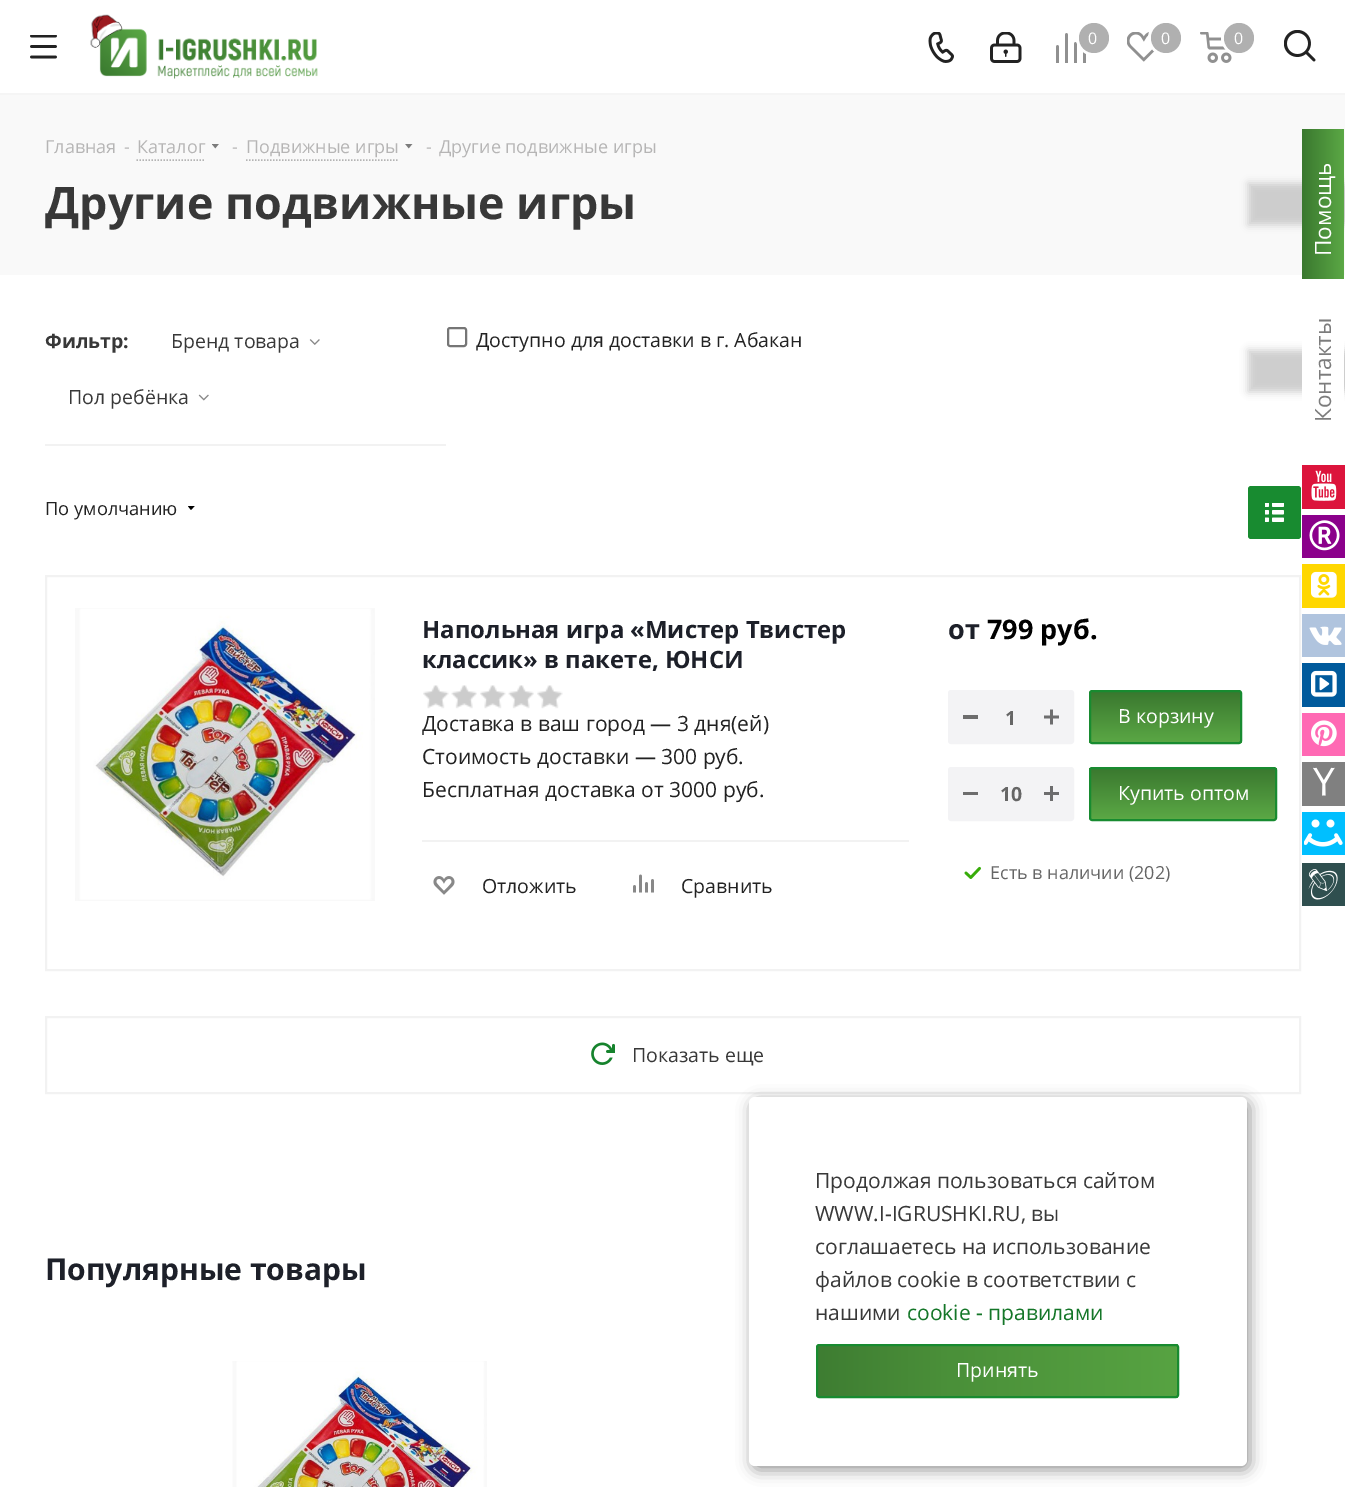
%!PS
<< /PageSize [1345 1487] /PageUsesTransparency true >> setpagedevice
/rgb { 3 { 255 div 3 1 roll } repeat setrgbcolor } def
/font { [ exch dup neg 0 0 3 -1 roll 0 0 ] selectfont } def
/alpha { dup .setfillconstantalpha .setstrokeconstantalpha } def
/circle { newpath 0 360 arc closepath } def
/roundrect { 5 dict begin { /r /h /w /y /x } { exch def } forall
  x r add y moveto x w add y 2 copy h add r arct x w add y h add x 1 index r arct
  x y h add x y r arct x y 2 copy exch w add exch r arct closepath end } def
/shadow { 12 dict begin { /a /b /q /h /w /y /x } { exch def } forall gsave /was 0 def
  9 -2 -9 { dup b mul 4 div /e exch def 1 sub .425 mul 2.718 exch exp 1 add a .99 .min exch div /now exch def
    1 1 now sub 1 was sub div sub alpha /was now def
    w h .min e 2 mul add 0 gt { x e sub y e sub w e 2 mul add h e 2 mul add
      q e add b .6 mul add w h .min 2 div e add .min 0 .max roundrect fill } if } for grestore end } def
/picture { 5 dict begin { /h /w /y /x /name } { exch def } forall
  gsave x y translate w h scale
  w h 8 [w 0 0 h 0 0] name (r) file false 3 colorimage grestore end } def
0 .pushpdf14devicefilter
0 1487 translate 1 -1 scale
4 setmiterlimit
255 255 255 rgb
0 0 1345 1487 rectfill
245 245 245 rgb
0 93 1345 2 rectfill
(img/1.rgb) 30 35 27 24 picture
(img/2.rgb) 90 14 228 65 picture
(img/3.rgb) 928 32 26 31 picture
(img/4.rgb) 990 32 32 31 picture
(img/5.rgb) 1056 33 30 30 picture
255 255 255 rgb
3 setlinewidth
1094 38 16.5 circle stroke
176 176 176 rgb
1094 38 15 circle fill
(img/6.rgb) 1127 32 30 30 picture
255 255 255 rgb
1166 38 16.5 circle stroke
176 176 176 rgb
1166 38 15 circle fill
(img/7.rgb) 1200 32 32 31 picture
255 255 255 rgb
1239 38 16.5 circle stroke
176 176 176 rgb
1239 38 15 circle fill
(img/8.rgb) 1284 30 32 32 picture
249 249 249 rgb
0 95 1345 180 rectfill
180 180 180 rgb
1.5 setlinewidth
[1.5 1.5] 0 setdash
136.5 160 moveto 205.5 160 lineto stroke
(img/9.rgb) 212 144 7 5 picture
246 160 moveto 399 160 lineto stroke
(img/10.rgb) 405 144 8 5 picture
242 242 242 rgb
45 444 401 2 rectfill
(img/11.rgb) 309 339 11 6 picture
(img/12.rgb) 198 394 11 7 picture
118 118 118 rgb
2 setlinewidth
[] 0 setdash
448 328 18 18 2 roundrect stroke
gsave
188 506 7 5 rectclip
0 0 0 rgb
187.5 505.5 moveto 195 505.5 lineto 191 510 lineto closepath fill
grestore
24 139 48 rgb
1248 486 53 53 3 roundrect fill
(img/13.rgb) 1265 503 19 19 picture
242 242 242 rgb
46 576 1254 394 rectstroke
(img/14.rgb) 75 608 300 293 picture
(img/15.rgb) 423 685 26 24 picture
(img/16.rgb) 451 685 26 24 picture
(img/17.rgb) 480 685 26 24 picture
(img/18.rgb) 508 685 26 24 picture
(img/15.rgb) 537 685 26 24 picture
422 840 487 2 rectfill
(img/19.rgb) 433 876 22 19 picture
(img/20.rgb) 633 874 21 19 picture
243 243 245 rgb
949 691 124 52 2 roundrect gsave fill grestore
stroke
109 109 109 rgb
963 715 15 4 rectfill
(img/21.rgb) 1044 709 15 16 picture
gsave
1089 690 153 54 3 roundrect clip newpath
gsave 1089 692 moveto 1242 692 lineto 1242 743 lineto 1089 743 lineto closepath clip newpath
<< /ShadingType 2 /ColorSpace /DeviceRGB /Coords [1166 692 1166 743] /Extend [true true] /Function << /FunctionType 2 /Domain [0 1] /C0 [0.227 0.471 0.184] /C1 [0.357 0.659 0.271] /N 1 >> >> shfill grestore
grestore
24 139 48 rgb
1090 691 151 52 2 roundrect stroke
243 243 245 rgb
949 768 124 52 2 roundrect gsave fill grestore
stroke
109 109 109 rgb
963 792 15 3 rectfill
(img/22.rgb) 1044 786 15 15 picture
gsave
1089 767 188 54 3 roundrect clip newpath
gsave 1089 768 moveto 1277 768 lineto 1277 819 lineto 1089 819 lineto closepath clip newpath
<< /ShadingType 2 /ColorSpace /DeviceRGB /Coords [1183 768 1183 819] /Extend [true true] /Function << /FunctionType 2 /Domain [0 1] /C0 [0.227 0.471 0.184] /C1 [0.357 0.659 0.271] /N 1 >> >> shfill grestore
grestore
24 139 48 rgb
1090 768 186 52 2 roundrect stroke
(img/23.rgb) 964 866 17 13 picture
242 242 242 rgb
46 1017 1254 76 rectstroke
22 131 45 rgb
591 1042 24 23 rectfill
(img/24.rgb) 588 1040 29 28 picture
(img/25.rgb) 232 1361 255 126 picture
204 204 204 rgb
1248 183 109 42 0 4 1 shadow
gsave 1302 129 moveto 1344 129 lineto 1344 279 lineto 1302 279 lineto closepath clip newpath
<< /ShadingType 2 /ColorSpace /DeviceRGB /Coords [1302 204 1344 204] /Extend [true true] /Function << /FunctionType 2 /Domain [0 1] /C0 [0.227 0.471 0.184] /C1 [0.357 0.659 0.271] /N 1 >> >> shfill grestore
gsave
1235 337 moveto 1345 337 lineto 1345 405 lineto 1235 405 lineto closepath 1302 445.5 moveto 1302 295.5 lineto 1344 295.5 lineto 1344 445.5 lineto closepath eoclip newpath
1248 350 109 42 0 4 1 shadow
grestore
220 20 60 rgb
1302 465 43 44 rectfill
(img/26.rgb) 1311 470 26 31 picture
139 0 139 rgb
1302 515 43 43 rectfill
(img/27.rgb) 1309 520 31 31 picture
255 215 0 rgb
1302 564 43 44 rectfill
(img/28.rgb) 1311 571 26 27 picture
176 196 222 rgb
1302 614 43 43 rectfill
(img/29.rgb) 1309 626 33 19 picture
0 90 156 rgb
1302 663 43 44 rectfill
(img/30.rgb) 1311 670 26 27 picture
255 105 180 rgb
1302 713 43 43 rectfill
(img/31.rgb) 1311 720 26 27 picture
128 128 128 rgb
1302 762 43 44 rectfill
(img/32.rgb) 1313 767 22 29 picture
0 191 255 rgb
1302 812 43 43 rectfill
(img/33.rgb) 1304 819 39 28 picture
47 79 79 rgb
1302 863 43 43 rectfill
(img/34.rgb) 1308 869 30 31 picture
0 0 0 rgb
752 1101 498 369 6 7.5 0.4 shadow
255 255 255 rgb
749 1097 498 369 6 roundrect fill
gsave
816 1344 363 54 3 roundrect clip newpath
gsave 818 1344 moveto 1178 1344 lineto 1178 1398 lineto 818 1398 lineto closepath clip newpath
<< /ShadingType 2 /ColorSpace /DeviceRGB /Coords [817 1371 1177 1371] /Extend [true true] /Function << /FunctionType 3 /Domain [0 1] /Functions [<< /FunctionType 2 /Domain [0 1] /C0 [0.243 0.49 0.196] /C1 [0.29 0.561 0.224] /N 1 >> << /FunctionType 2 /Domain [0 1] /C0 [0.29 0.561 0.224] /C1 [0.341 0.639 0.259] /N 1 >>] /Bounds [0.35] /Encode [0 1 0 1] >> >> shfill grestore
grestore
24 139 48 rgb
817 1345 361 52 2 roundrect stroke
/OpenSans-Regular 16 font
255 255 255 rgb
[
  [(0) 1088 44]
  [(0) 1161 44]
  [(0) 1234 44]
] { aload pop moveto show } forall
/OpenSans-Regular 18 font
182 181 181 rgb
[
  [(Главная) 45 153]
  [(-) 124 153]
  [(Каталог) 137 153]
  [(-) 232 153]
  [(Подвижные игры) 246 153]
  [(-) 426 153]
  [(Другие подвижные игры) 439 153]
] { aload pop moveto show } forall
/OpenSans-Bold 44.75 font
56 56 56 rgb
45 219 moveto (Другие подвижные игры) show
/OpenSans-Bold 19.5 font
45 348 moveto (Фильтр:) show
/OpenSans-Regular 19.5 font
171 348 moveto (Бренд товара) show
68 404 moveto (Пол ребёнка) show
34 34 34 rgb
476 347 moveto (Доступно для доставки в г. Абакан) show
/OpenSans-Regular 18.25 font
45 515 moveto (По умолчанию) show
/OpenSans-Bold 23.9 font
29 32 41 rgb
422 638 moveto (Напольная игра «Мистер Твистер) show
422 668 moveto (классик» в пакете, ЮНСИ) show
/OpenSans-Regular 21 font
34 34 34 rgb
[
  [(Доставка в ваш город — 3 дня\(ей\)) 422 731]
  [(Стоимость доставки — 300 руб.) 422 764]
  [(Бесплатная доставка от 3000 руб.) 422 797]
] { aload pop moveto show } forall
/OpenSans-Regular 19.5 font
482 893 moveto (Отложить) show
681 893 moveto (Сравнить) show
/OpenSans-Bold 27 font
29 32 41 rgb
948 639 moveto (от) show
0 0 0 rgb
987 639 moveto (799 руб.) show
/OpenSans-Bold 19.5 font
102 102 102 rgb
1005 725 moveto (1) show
/OpenSans-Regular 19.5 font
255 255 255 rgb
1118 723 moveto (В корзину) show
/OpenSans-Bold 19.5 font
102 102 102 rgb
1000 801 moveto (10) show
/OpenSans-Regular 19.5 font
255 255 255 rgb
1118 800 moveto (Купить оптом) show
/OpenSans-Regular 18 font
102 102 102 rgb
990 879 moveto (Есть в наличии \(202\)) show
/OpenSans-Regular 19.5 font
56 56 56 rgb
632 1062 moveto (Показать еще) show
/OpenSans-Bold 30 font
29 32 41 rgb
45 1280 moveto (Популярные товары) show
/OpenSans-Regular 22.5 font
255 255 255 rgb
gsave 1331 256 translate -90 rotate 0 0 moveto (Помощь) show grestore
124 124 124 rgb
gsave 1331 422 translate -90 rotate 0 0 moveto (Контакты) show grestore
/OpenSans-Regular 21 font
56 56 56 rgb
[
  [(Продолжая пользоваться сайтом) 815 1188]
  [(WWW.I-IGRUSHKI.RU, вы) 815 1221]
  [(соглашаетесь на использование) 815 1254]
  [(файлов cookie в соответствии с) 815 1287]
  [(нашими) 815 1320]
] { aload pop moveto show } forall
20 118 40 rgb
907 1320 moveto (cookiе - правилами) show
/OpenSans-Regular 19.5 font
255 255 255 rgb
956 1377 moveto (Принять) show
.poppdf14devicefilter showpage
